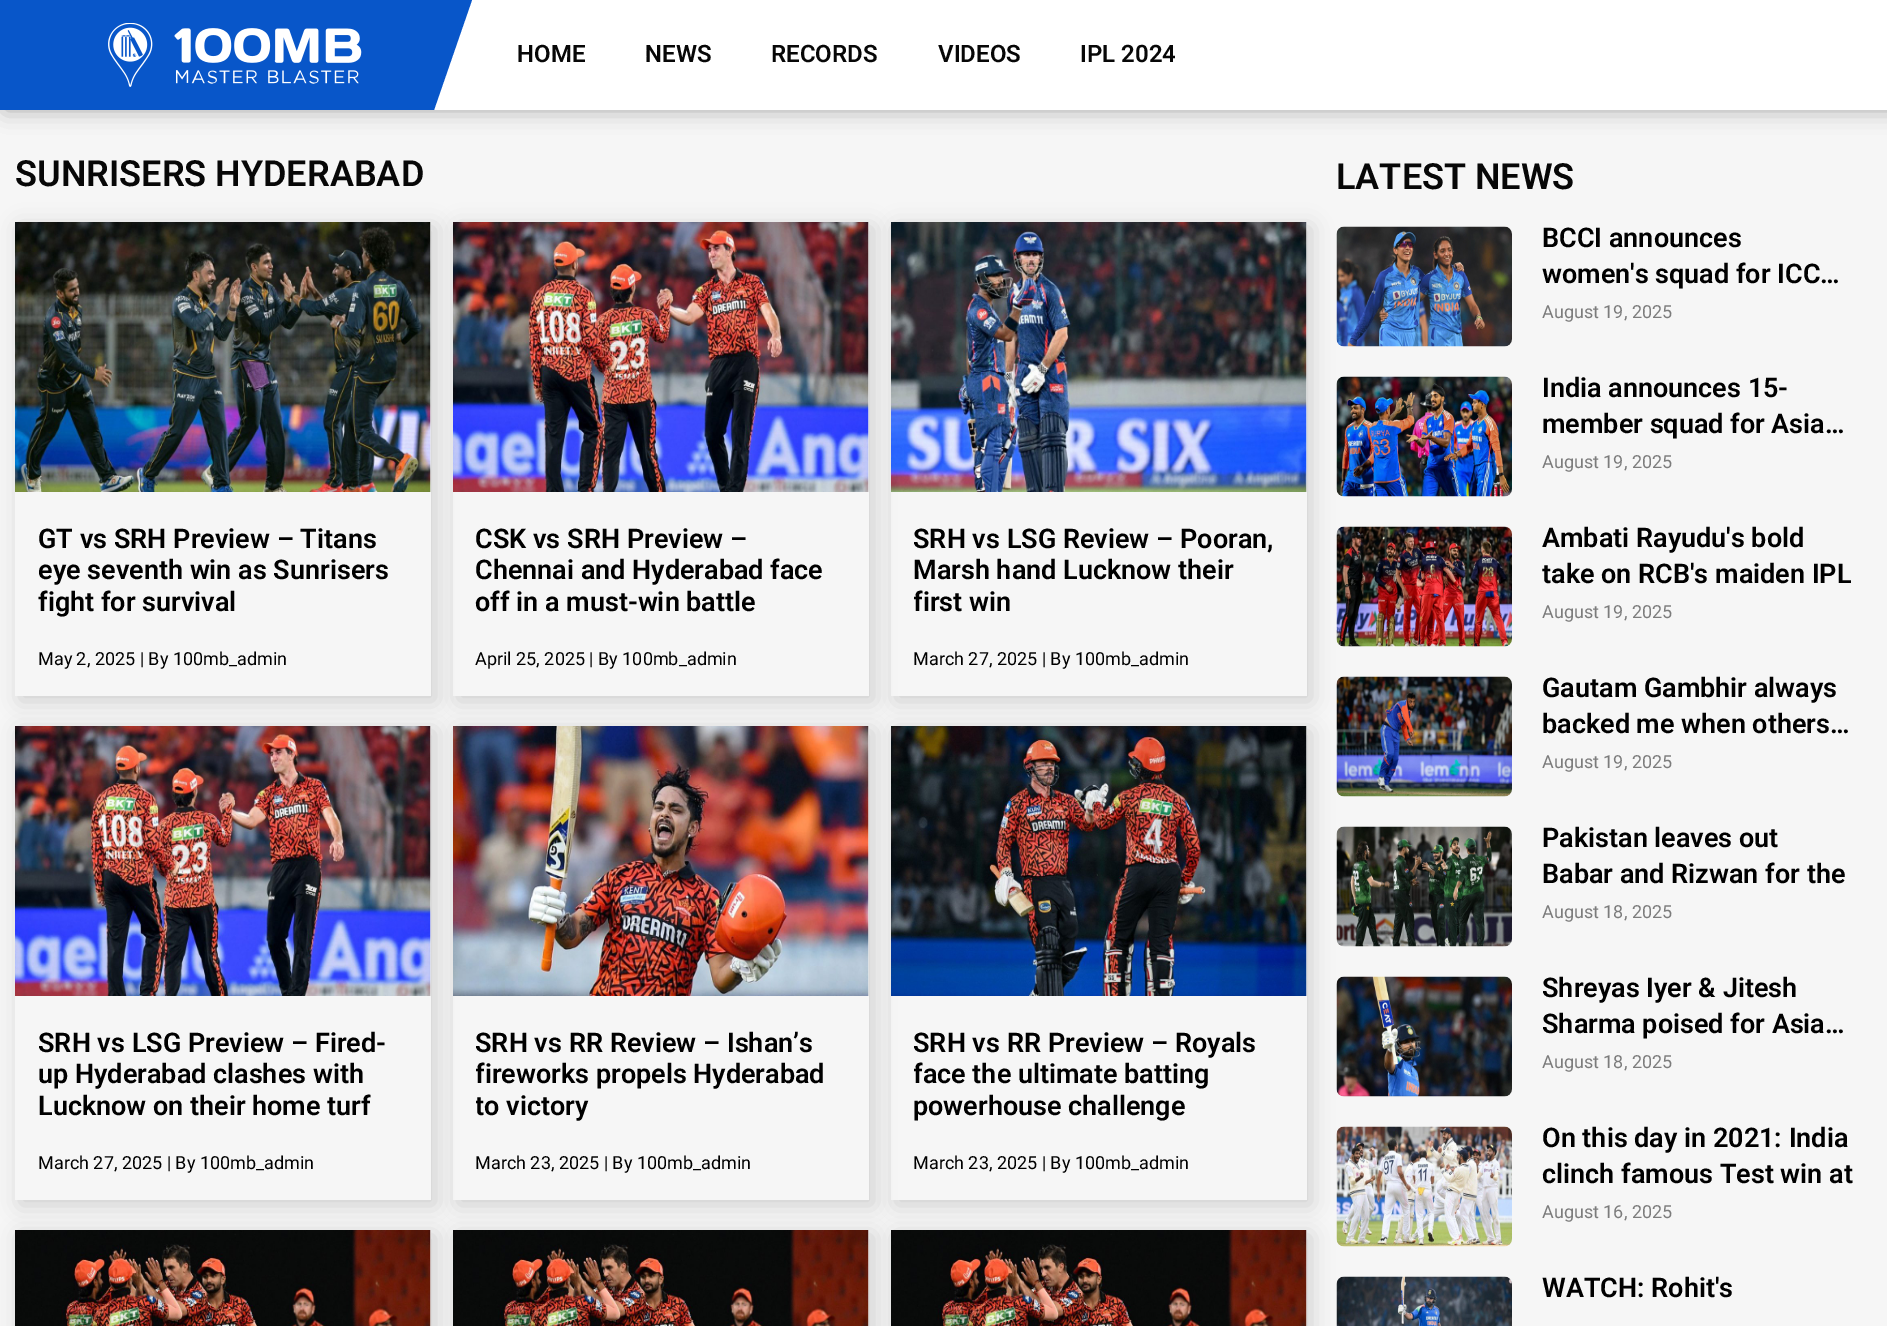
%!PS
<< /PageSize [1887 1326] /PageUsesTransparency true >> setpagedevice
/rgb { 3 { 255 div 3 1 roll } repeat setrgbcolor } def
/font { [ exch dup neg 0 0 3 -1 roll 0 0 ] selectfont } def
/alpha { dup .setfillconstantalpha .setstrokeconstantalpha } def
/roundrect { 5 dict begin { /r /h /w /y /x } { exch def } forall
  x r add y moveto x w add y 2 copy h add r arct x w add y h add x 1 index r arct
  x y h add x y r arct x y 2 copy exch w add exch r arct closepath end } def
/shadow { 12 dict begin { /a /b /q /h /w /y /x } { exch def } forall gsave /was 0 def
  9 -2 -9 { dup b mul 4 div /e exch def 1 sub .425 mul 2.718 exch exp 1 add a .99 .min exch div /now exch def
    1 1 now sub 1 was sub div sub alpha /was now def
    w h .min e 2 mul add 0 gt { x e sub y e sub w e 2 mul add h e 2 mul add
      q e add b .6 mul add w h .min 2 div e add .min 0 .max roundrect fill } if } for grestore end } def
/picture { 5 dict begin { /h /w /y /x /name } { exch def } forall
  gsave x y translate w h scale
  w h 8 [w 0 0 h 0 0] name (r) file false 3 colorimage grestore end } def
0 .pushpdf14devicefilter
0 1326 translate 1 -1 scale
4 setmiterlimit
246 246 246 rgb
0 0 1887 1326 rectfill
0 0 0 rgb
5 0 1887 110 0 11 0.16 shadow
255 255 255 rgb
434 0 1453 110 rectfill
gsave
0 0 moveto 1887 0 lineto 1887 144 lineto 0 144 lineto closepath 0 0 moveto 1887 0 lineto 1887 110 lineto 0 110 lineto closepath eoclip newpath
0 0 0 rgb
5 0 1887 110 0 11 0.16 shadow
grestore
8 86 201 rgb
0 0 moveto 0 110 lineto 434 110 lineto 472 0 lineto closepath fill
(img/1.rgb) 108 23 254 64 picture
255 255 255 rgb
473 109 1231 1 rectfill
gsave
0 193 moveto 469 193 lineto 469 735 lineto 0 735 lineto closepath 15 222 moveto 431 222 lineto 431 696 lineto 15 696 lineto closepath eoclip newpath
0 0 0 rgb
20 227 415 474 0 11 0.16 shadow
grestore
gsave
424 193 moveto 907 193 lineto 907 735 lineto 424 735 lineto closepath 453 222 moveto 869 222 lineto 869 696 lineto 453 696 lineto closepath eoclip newpath
0 0 0 rgb
458 227 415 474 0 11 0.16 shadow
grestore
(img/2.rgb) 15 222 416 270 picture
gsave
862 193 moveto 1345 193 lineto 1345 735 lineto 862 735 lineto closepath 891 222 moveto 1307 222 lineto 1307 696 lineto 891 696 lineto closepath eoclip newpath
0 0 0 rgb
896 227 415 474 0 11 0.16 shadow
grestore
(img/3.rgb) 453 222 416 270 picture
(img/4.rgb) 891 222 416 270 picture
gsave
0 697 moveto 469 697 lineto 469 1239 lineto 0 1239 lineto closepath 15 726 moveto 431 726 lineto 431 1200 lineto 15 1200 lineto closepath eoclip newpath
0 0 0 rgb
20 731 415 474 0 11 0.16 shadow
grestore
gsave
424 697 moveto 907 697 lineto 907 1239 lineto 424 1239 lineto closepath 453 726 moveto 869 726 lineto 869 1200 lineto 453 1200 lineto closepath eoclip newpath
0 0 0 rgb
458 731 415 474 0 11 0.16 shadow
grestore
(img/5.rgb) 15 726 416 270 picture
gsave
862 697 moveto 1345 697 lineto 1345 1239 lineto 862 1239 lineto closepath 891 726 moveto 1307 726 lineto 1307 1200 lineto 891 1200 lineto closepath eoclip newpath
0 0 0 rgb
896 731 415 474 0 11 0.16 shadow
grestore
(img/6.rgb) 453 726 416 270 picture
(img/7.rgb) 891 726 416 270 picture
0 0 0 rgb
20 1235 415 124 0 11 0.16 shadow
458 1235 415 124 0 11 0.16 shadow
(img/8.rgb) 15 1230 416 96 picture
896 1235 415 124 0 11 0.16 shadow
(img/8.rgb) 453 1230 416 96 picture
(img/9.rgb) 891 1230 416 96 picture
(img/10.rgb) 1336 226 176 121 picture
(img/11.rgb) 1336 376 176 121 picture
(img/12.rgb) 1336 526 176 121 picture
(img/13.rgb) 1336 676 176 121 picture
(img/14.rgb) 1336 826 176 121 picture
(img/15.rgb) 1336 976 176 121 picture
(img/16.rgb) 1336 1126 176 121 picture
(img/17.rgb) 1336 1276 176 50 picture
/Roboto-SemiBold 24 font
7 7 7 rgb
[
  [(HOME) 517 62]
  [(NEWS) 645 62]
  [(RECORDS) 771 62]
  [(VIDEOS) 938 62]
  [(IPL 2024) 1080 62]
] { aload pop moveto show } forall
/Roboto-SemiBold 36 font
15 186 moveto (SUNRISERS HYDERABAD) show
/Roboto-SemiBold 27 font
0 0 0 rgb
[
  [(GT vs SRH Preview – Titans) 38 548]
  [(eye seventh win as Sunrisers) 38 579]
  [(fight for survival) 38 611]
] { aload pop moveto show } forall
/Roboto-Regular 18 font
38 665 moveto (May 2, 2025 | By 100mb_admin) show
/Roboto-SemiBold 27 font
[
  [(CSK vs SRH Preview –) 475 548]
  [(Chennai and Hyderabad face) 475 579]
  [(off in a must-win battle) 475 611]
] { aload pop moveto show } forall
/Roboto-Regular 18 font
475 665 moveto (April 25, 2025 | By 100mb_admin) show
/Roboto-SemiBold 27 font
913 548 moveto (SRH vs LSG Review – Pooran,) show
913 579 moveto (Marsh hand Lucknow their) show
gsave
914 522 370 99 rectclip
913 611 moveto (first win) show
grestore
/Roboto-Regular 18 font
913 665 moveto (March 27, 2025 | By 100mb_admin) show
/Roboto-SemiBold 27 font
[
  [(SRH vs LSG Preview – Fired-) 38 1052]
  [(up Hyderabad clashes with) 38 1083]
  [(Lucknow on their home turf) 38 1115]
] { aload pop moveto show } forall
/Roboto-Regular 18 font
38 1169 moveto (March 27, 2025 | By 100mb_admin) show
/Roboto-SemiBold 27 font
475 1052 moveto (SRH vs RR Review – Ishan’s) show
gsave
476 1026 370 99 rectclip
475 1083 moveto (fireworks propels Hyderabad) show
475 1115 moveto (to victory) show
grestore
/Roboto-Regular 18 font
475 1169 moveto (March 23, 2025 | By 100mb_admin) show
/Roboto-SemiBold 27 font
913 1052 moveto (SRH vs RR Preview – Royals) show
gsave
914 1026 370 99 rectclip
913 1083 moveto (face the ultimate batting) show
grestore
913 1115 moveto (powerhouse challenge) show
/Roboto-Regular 18 font
913 1169 moveto (March 23, 2025 | By 100mb_admin) show
/Roboto-SemiBold 36 font
7 7 7 rgb
1336 189 moveto (LATEST NEWS) show
/Roboto-SemiBold 27 font
0 0 0 rgb
1542 247 moveto (BCCI announces) show
1542 283 moveto (women's squad for ICC…) show
/Roboto-Regular 18 font
124 124 124 rgb
1542 318 moveto (August 19, 2025) show
/Roboto-SemiBold 27 font
0 0 0 rgb
1542 397 moveto (India announces 15-) show
1542 433 moveto (member squad for Asia…) show
/Roboto-Regular 18 font
124 124 124 rgb
1542 468 moveto (August 19, 2025) show
/Roboto-SemiBold 27 font
0 0 0 rgb
1542 547 moveto (Ambati Rayudu's bold) show
gsave
1542 521 312 72 rectclip
1542 583 moveto (take on RCB's maiden IPL) show
grestore
/Roboto-Regular 18 font
124 124 124 rgb
1542 618 moveto (August 19, 2025) show
/Roboto-SemiBold 27 font
0 0 0 rgb
1542 697 moveto (Gautam Gambhir always) show
1542 733 moveto (backed me when others…) show
/Roboto-Regular 18 font
124 124 124 rgb
1542 768 moveto (August 19, 2025) show
/Roboto-SemiBold 27 font
0 0 0 rgb
1542 847 moveto (Pakistan leaves out) show
1542 883 moveto (Babar and Rizwan for the) show
/Roboto-Regular 18 font
124 124 124 rgb
1542 918 moveto (August 18, 2025) show
/Roboto-SemiBold 27 font
0 0 0 rgb
1542 997 moveto (Shreyas Iyer & Jitesh) show
1542 1033 moveto (Sharma poised for Asia…) show
/Roboto-Regular 18 font
124 124 124 rgb
1542 1068 moveto (August 18, 2025) show
/Roboto-SemiBold 27 font
0 0 0 rgb
1542 1147 moveto (On this day in 2021: India) show
1542 1183 moveto (clinch famous Test win at) show
/Roboto-Regular 18 font
124 124 124 rgb
1542 1218 moveto (August 16, 2025) show
/Roboto-SemiBold 27 font
0 0 0 rgb
1542 1297 moveto (WATCH: Rohit's) show
.poppdf14devicefilter showpage
